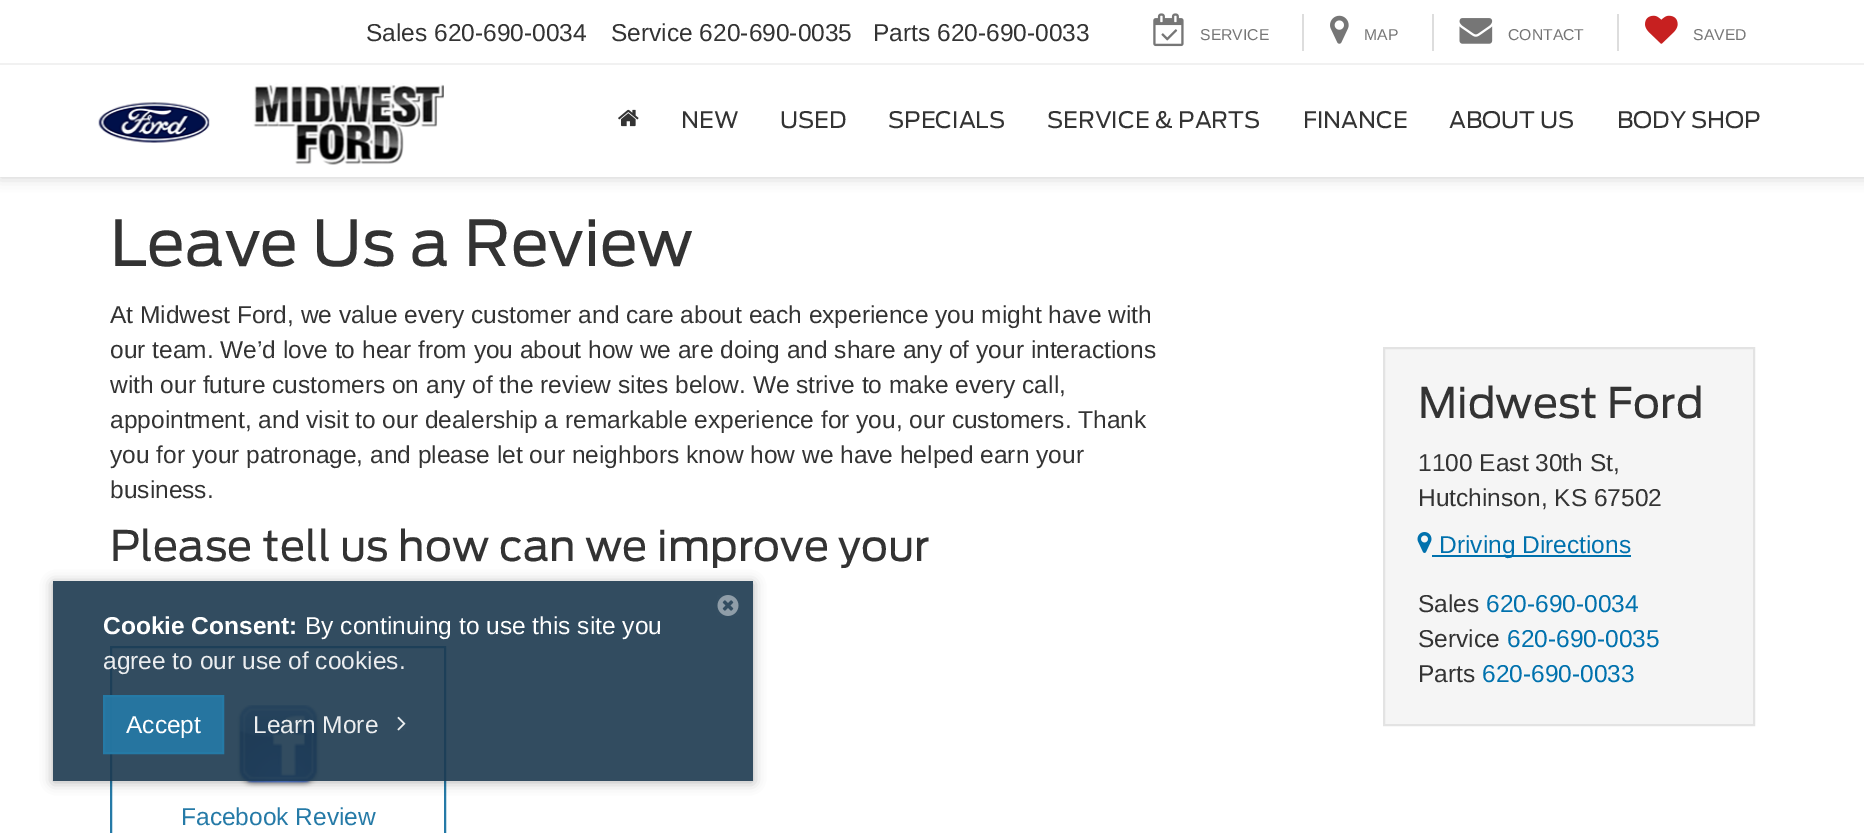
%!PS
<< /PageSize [1864 833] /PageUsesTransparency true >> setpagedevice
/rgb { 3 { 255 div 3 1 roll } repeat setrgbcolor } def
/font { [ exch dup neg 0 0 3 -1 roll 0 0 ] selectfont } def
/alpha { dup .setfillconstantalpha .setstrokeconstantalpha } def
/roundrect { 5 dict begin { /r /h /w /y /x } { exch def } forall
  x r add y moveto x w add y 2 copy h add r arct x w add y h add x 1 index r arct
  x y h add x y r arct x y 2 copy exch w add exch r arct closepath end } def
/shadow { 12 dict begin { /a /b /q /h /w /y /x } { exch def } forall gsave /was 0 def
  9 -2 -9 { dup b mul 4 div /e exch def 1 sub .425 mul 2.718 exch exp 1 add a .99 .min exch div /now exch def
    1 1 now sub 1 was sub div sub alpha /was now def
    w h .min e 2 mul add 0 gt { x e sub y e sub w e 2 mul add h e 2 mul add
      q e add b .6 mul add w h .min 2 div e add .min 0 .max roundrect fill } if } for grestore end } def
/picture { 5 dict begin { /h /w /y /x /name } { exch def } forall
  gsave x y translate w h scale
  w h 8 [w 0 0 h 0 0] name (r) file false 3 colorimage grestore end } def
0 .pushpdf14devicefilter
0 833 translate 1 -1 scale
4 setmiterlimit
255 255 255 rgb
0 0 1864 833 rectfill
0 0 0 rgb
0 0 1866 177 0 7 0.2 shadow
255 255 255 rgb
0 0 1864 177 rectfill
(img/1.rgb) 1153 13 31 34 picture
221 221 221 rgb
1302 14 2 37 rectfill
(img/2.rgb) 1330 15 19 29 picture
1432 14 2 37 rectfill
(img/3.rgb) 1459 18 34 26 picture
1617 14 2 37 rectfill
(img/4.rgb) 1645 15 33 29 picture
(img/5.rgb) 98 102 112 41 picture
(img/6.rgb) 253 83 191 82 picture
241 241 241 rgb
0 63 1864 2 rectfill
(img/7.rgb) 618 109 21 18 picture
37 122 167 rgb
2 setlinewidth
111 647 334 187 rectstroke
(img/8.rgb) 236 705 84 83 picture
245 245 245 rgb
1384 348 moveto 1754 348 lineto 1754 725 lineto 1384 725 lineto closepath gsave fill grestore
227 227 227 rgb
stroke
(img/9.rgb) 1417 532 15 21 picture
0 113 173 rgb
1432 555 199 2 rectfill
gsave
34 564 moveto 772 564 lineto 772 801 lineto 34 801 lineto closepath 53 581 moveto 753 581 lineto 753 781 lineto 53 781 lineto closepath eoclip newpath
0 0 0 rgb
53 583 700 199 0 6 0.32 shadow
grestore
0.9 alpha
28 57 79 rgb
53 581 700 200 rectfill
1 alpha
(img/10.rgb) 717 595 22 21 picture
0.9 alpha
37 122 167 rgb
104 696 moveto 223 696 lineto 223 753 lineto 104 753 lineto closepath fill
1 alpha
37 122 166 rgb
104 696 moveto 223 696 lineto 223 753 lineto 104 753 lineto closepath stroke
(img/11.rgb) 397 716 9 15 picture
/LiberationSans-Regular 24.5 font
51 51 51 rgb
[
  [(Sales 620-690-0034) 366 41]
  [(Service 620-690-0035) 611 41]
  [(Parts 620-690-0033) 873 41]
] { aload pop moveto show } forall
/LiberationSans-Regular 15.75 font
118 118 118 rgb
[
  [(SERVICE) 1200 40]
  [(MAP) 1364 40]
  [(CONTACT) 1508 40]
  [(SAVED) 1693 40]
] { aload pop moveto show } forall
/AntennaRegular-Regular 22.75 font
51 51 51 rgb
[
  [(NEW) 681 128]
  [(USED) 780 128]
  [(SPECIALS) 888 128]
  [(SERVICE & PARTS) 1047 128]
  [(FINANCE) 1303 128]
  [(ABOUT US) 1449 128]
  [(BODY SHOP) 1617 128]
] { aload pop moveto show } forall
/AntennaRegular-Regular 63 font
110 266 moveto (Leave Us a Review) show
/LiberationSans-Regular 24.5 font
[
  [(At Midwest Ford, we value every customer and care about each experience you might have with) 110 323]
  [(our team. We’d love to hear from you about how we are doing and share any of your interactions) 110 358]
  [(with our future customers on any of the review sites below. We strive to make every call,) 110 393]
  [(appointment, and visit to our dealership a remarkable experience for you, our customers. Thank) 110 428]
  [(you for your patronage, and please let our neighbors know how we have helped earn your) 110 463]
  [(business.) 110 498]
] { aload pop moveto show } forall
/AntennaRegular-Regular 42 font
110 561 moveto (Please tell us how can we improve your) show
/LiberationSans-Regular 24.5 font
37 122 167 rgb
181 825 moveto (Facebook Review) show
/AntennaRegular-Regular 42 font
51 51 51 rgb
1418 418 moveto (Midwest Ford) show
/LiberationSans-Regular 24.5 font
1418 471 moveto (1100 East 30th St,) show
1418 506 moveto (Hutchinson, KS 67502) show
0 113 173 rgb
1439 553 moveto (Driving Directions) show
51 51 51 rgb
1418 612 moveto (Sales) show
0 113 173 rgb
1486 612 moveto (620-690-0034) show
51 51 51 rgb
1418 647 moveto (Service) show
0 113 173 rgb
1507 647 moveto (620-690-0035) show
51 51 51 rgb
1418 682 moveto (Parts) show
0 113 173 rgb
1482 682 moveto (620-690-0033) show
/LiberationSans-Bold 24.5 font
255 255 255 rgb
103 634 moveto (Cookie Consent:) show
/LiberationSans-Regular 24.5 font
305 634 moveto (By continuing to use this site you) show
235 237 239 rgb
103 669 moveto (agree to our use of cookies.) show
255 255 255 rgb
126 733 moveto (Accept) show
235 237 239 rgb
253 733 moveto (Learn More) show
.poppdf14devicefilter showpage
